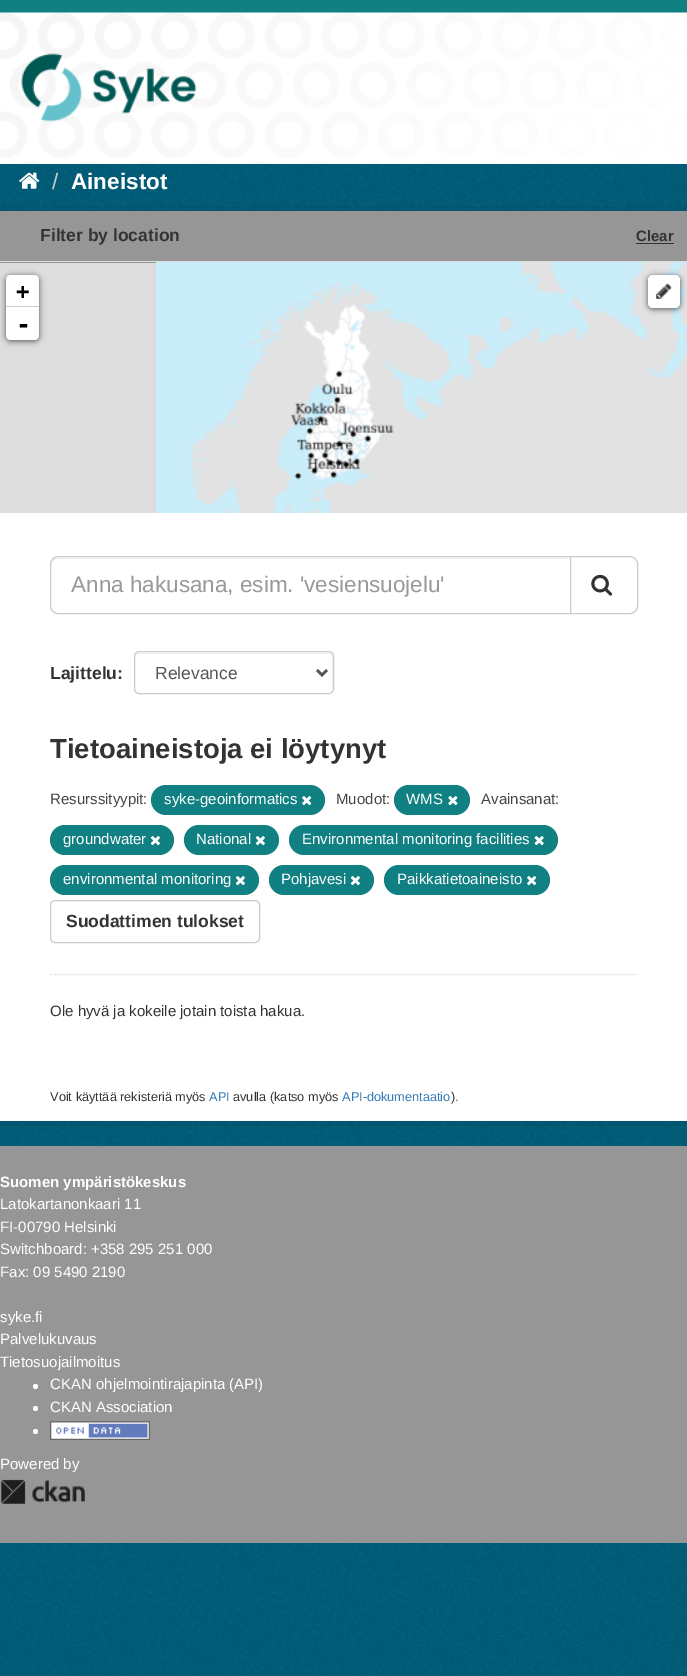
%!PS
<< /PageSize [687 1676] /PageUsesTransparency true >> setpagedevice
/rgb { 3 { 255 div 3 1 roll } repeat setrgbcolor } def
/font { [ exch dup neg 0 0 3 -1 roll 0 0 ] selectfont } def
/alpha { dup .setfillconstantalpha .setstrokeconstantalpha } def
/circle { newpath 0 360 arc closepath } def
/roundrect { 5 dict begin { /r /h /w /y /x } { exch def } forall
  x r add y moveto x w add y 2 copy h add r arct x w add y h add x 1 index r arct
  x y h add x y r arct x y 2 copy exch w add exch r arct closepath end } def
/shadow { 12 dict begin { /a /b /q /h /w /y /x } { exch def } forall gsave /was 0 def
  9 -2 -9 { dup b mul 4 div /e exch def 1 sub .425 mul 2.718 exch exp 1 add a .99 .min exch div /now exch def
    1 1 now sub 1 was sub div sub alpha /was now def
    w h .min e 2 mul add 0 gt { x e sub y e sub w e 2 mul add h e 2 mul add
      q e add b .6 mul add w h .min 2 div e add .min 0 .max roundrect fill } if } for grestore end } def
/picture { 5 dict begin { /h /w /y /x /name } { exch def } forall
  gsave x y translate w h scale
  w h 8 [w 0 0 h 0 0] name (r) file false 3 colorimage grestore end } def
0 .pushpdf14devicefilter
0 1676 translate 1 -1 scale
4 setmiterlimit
0 93 122 rgb
0 0 687 1676 rectfill
(img/1.rgb) 0 163 687 1513 picture
16 128 130 rgb
0 0 687 13 rectfill
(img/2.rgb) 0 12 687 152 picture
(img/3.rgb) 21 53 176 69 picture
(img/4.rgb) 19 172 21 17 picture
0.05 alpha
0 0 0 rgb
5 setlinewidth
-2.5 208.5 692 915 rectstroke
1 alpha
[
  [0 513 687 608 255 255 255]
  [0 211 687 52 150 150 150]
  [0 261 687 1 221 221 221]
  [636 243 38 1 51 51 51]
  [0 263 156 250 221 221 221]
] { aload pop rgb rectfill } forall
0 0 0 rgb
6 276 33 65 5 3 0.65 shadow
255 255 255 rgb
11 275 moveto 34 275 lineto 37 275 39 277 39 280 curveto 39 308 lineto 6 308 lineto 6 280 lineto 6 277 8 275 11 275 curveto closepath fill
204 204 204 rgb
6 306 33 1 rectfill
255 255 255 rgb
6 308 moveto 39 308 lineto 39 335 lineto 39 338 37 340 34 340 curveto 11 340 lineto 8 340 6 338 6 335 curveto closepath fill
(img/7.rgb) 476 262 211 112 picture
0 0 0 rgb
648 276 32 33 5 3 0.65 shadow
255 255 255 rgb
648 275 32 33 5 roundrect fill
(img/5.rgb) 656 283 16 16 picture
(img/6.rgb) 156 262 320 112 picture
(img/8.rgb) 156 374 320 139 picture
(img/9.rgb) 476 374 211 139 picture
221 221 221 rgb
1.2 setlinewidth
[1.25 1.25] 0 setdash
50 974.5 moveto 637.5 974.5 lineto stroke
236 236 236 rgb
58 559 moveto 570 559 lineto 570 558 lineto 57 558 lineto 53 558 51 561 51 565 curveto 51 562 54 559 58 559 curveto closepath fill
204 204 204 rgb
1 setlinewidth
[] 0 setdash
58 556.5 moveto 570.5 556.5 lineto 570.5 613.5 lineto 58 613.5 lineto 54 613.5 50.5 610 50.5 606 curveto 50.5 564 lineto 50.5 560 54 556.5 58 556.5 curveto closepath stroke
255 255 255 rgb
570.5 556.5 moveto 630 556.5 lineto 634 556.5 637.5 560 637.5 564 curveto 637.5 606 lineto 637.5 610 634 613.5 630 613.5 curveto 570.5 613.5 lineto closepath gsave fill grestore
204 204 204 rgb
stroke
(img/10.rgb) 591 574 22 22 picture
236 236 236 rgb
139 654 moveto 329 654 lineto 331 654 332 655 332 658 curveto 332 692 lineto 332 691 333 690 333 689 curveto 333 657 lineto 333 655 331 653 329 653 curveto 139 653 lineto 137 653 135 655 135 657 curveto 135 658 lineto 135 655 137 654 139 654 curveto closepath fill
204 204 204 rgb
134.5 651.5 199 42 4.5 roundrect stroke
85 85 85 rgb
2.5 setlinewidth
317 670 moveto 322 675 lineto 327 670 lineto stroke
16 128 130 rgb
151 785 174 30 15 roundrect fill
(img/11.rgb) 302 796 10 10 picture
394 785 76 30 15 roundrect fill
(img/12.rgb) 448 796 10 10 picture
50 825 124 30 15 roundrect fill
(img/13.rgb) 150 836 10 10 picture
184 825 95 30 15 roundrect fill
(img/13.rgb) 255 836 10 10 picture
289 825 269 30 15 roundrect fill
(img/14.rgb) 534 836 10 10 picture
50 865 209 30 15 roundrect fill
(img/13.rgb) 235 876 10 10 picture
269 865 105 30 15 roundrect fill
(img/13.rgb) 350 876 10 10 picture
384 865 166 30 15 roundrect fill
(img/11.rgb) 527 876 10 10 picture
204 204 204 rgb
1 setlinewidth
50.5 900.5 209 42 4.5 roundrect stroke
150 150 150 rgb
0 1146 687 397 rectfill
255 255 255 rgb
35.5 1386.5 2.5 circle fill
35.5 1408.5 2.5 circle fill
35.5 1431.5 2.5 circle fill
(img/15.rgb) 50 1421 100 19 picture
(img/16.rgb) 1 1479 84 25 picture
/LiberationSans-Regular 22.5 font
204 204 204 rgb
52 189 moveto (/) show
/LiberationSans-Bold 22.5 font
255 255 255 rgb
71 189 moveto (Aineistot) show
/LiberationSans-Bold 17.5 font
51 51 51 rgb
40 241 moveto (Filter by location) show
/LiberationSans-Bold 15 font
636 241 moveto (Clear) show
/DejaVuSansMono-Bold 22.5 font
0 0 0 rgb
16 299 moveto (+) show
/DejaVuSansMono-Bold 25 font
16 333 moveto (-) show
/LiberationSans-Regular 22.5 font
153 153 153 rgb
71 592 moveto (Anna hakusana, esim. 'vesiensuojelu') show
/LiberationSans-Bold 17.5 font
51 51 51 rgb
50 679 moveto (Lajittelu:) show
/LiberationSans-Regular 17.5 font
85 85 85 rgb
155 679 moveto (Relevance) show
/LiberationSans-Bold 27.5 font
51 51 51 rgb
50 758 moveto (Tietoaineistoja ei löytynyt) show
/LiberationSans-Regular 15 font
68 68 68 rgb
50 804 moveto (Resurssityypit:) show
255 255 255 rgb
164 804 moveto (syke-geoinformatics) show
68 68 68 rgb
336 804 moveto (Muodot:) show
255 255 255 rgb
406 804 moveto (WMS) show
68 68 68 rgb
481 804 moveto (Avainsanat:) show
255 255 255 rgb
[
  [(groundwater) 63 844]
  [(National) 196 844]
  [(Environmental monitoring facilities) 302 844]
  [(environmental monitoring) 63 884]
  [(Pohjavesi) 281 884]
  [(Paikkatietoaineisto) 397 884]
] { aload pop moveto show } forall
/LiberationSans-Bold 17.5 font
51 51 51 rgb
66 927 moveto (Suodattimen tulokset) show
/LiberationSans-Regular 15 font
50 1016 moveto (Ole hyvä ja kokeile jotain toista hakua.) show
/LiberationSans-Regular 12.75 font
50 1101 moveto (Voit käyttää rekisteriä myös) show
51 122 183 rgb
209 1101 moveto (API) show
51 51 51 rgb
233 1101 moveto (avulla \(katso myös) show
51 122 183 rgb
342 1101 moveto (API-dokumentaatio) show
51 51 51 rgb
451 1101 moveto (\).) show
/LiberationSans-Bold 15 font
255 255 255 rgb
0 1187 moveto (Suomen ympäristökeskus) show
/LiberationSans-Regular 15 font
[
  [(Latokartanonkaari 11) 0 1209]
  [(FI-00790 Helsinki) 0 1232]
  [(Switchboard: +358 295 251 000) 0 1254]
  [(Fax: 09 5490 2190) 0 1277]
  [(syke.fi) 0 1322]
  [(Palvelukuvaus) 0 1344]
  [(Tietosuojailmoitus) 0 1367]
  [(CKAN ohjelmointirajapinta \(API\)) 50 1389]
  [(CKAN Association) 50 1412]
  [(Powered by) 0 1469]
] { aload pop moveto show } forall
.poppdf14devicefilter showpage
